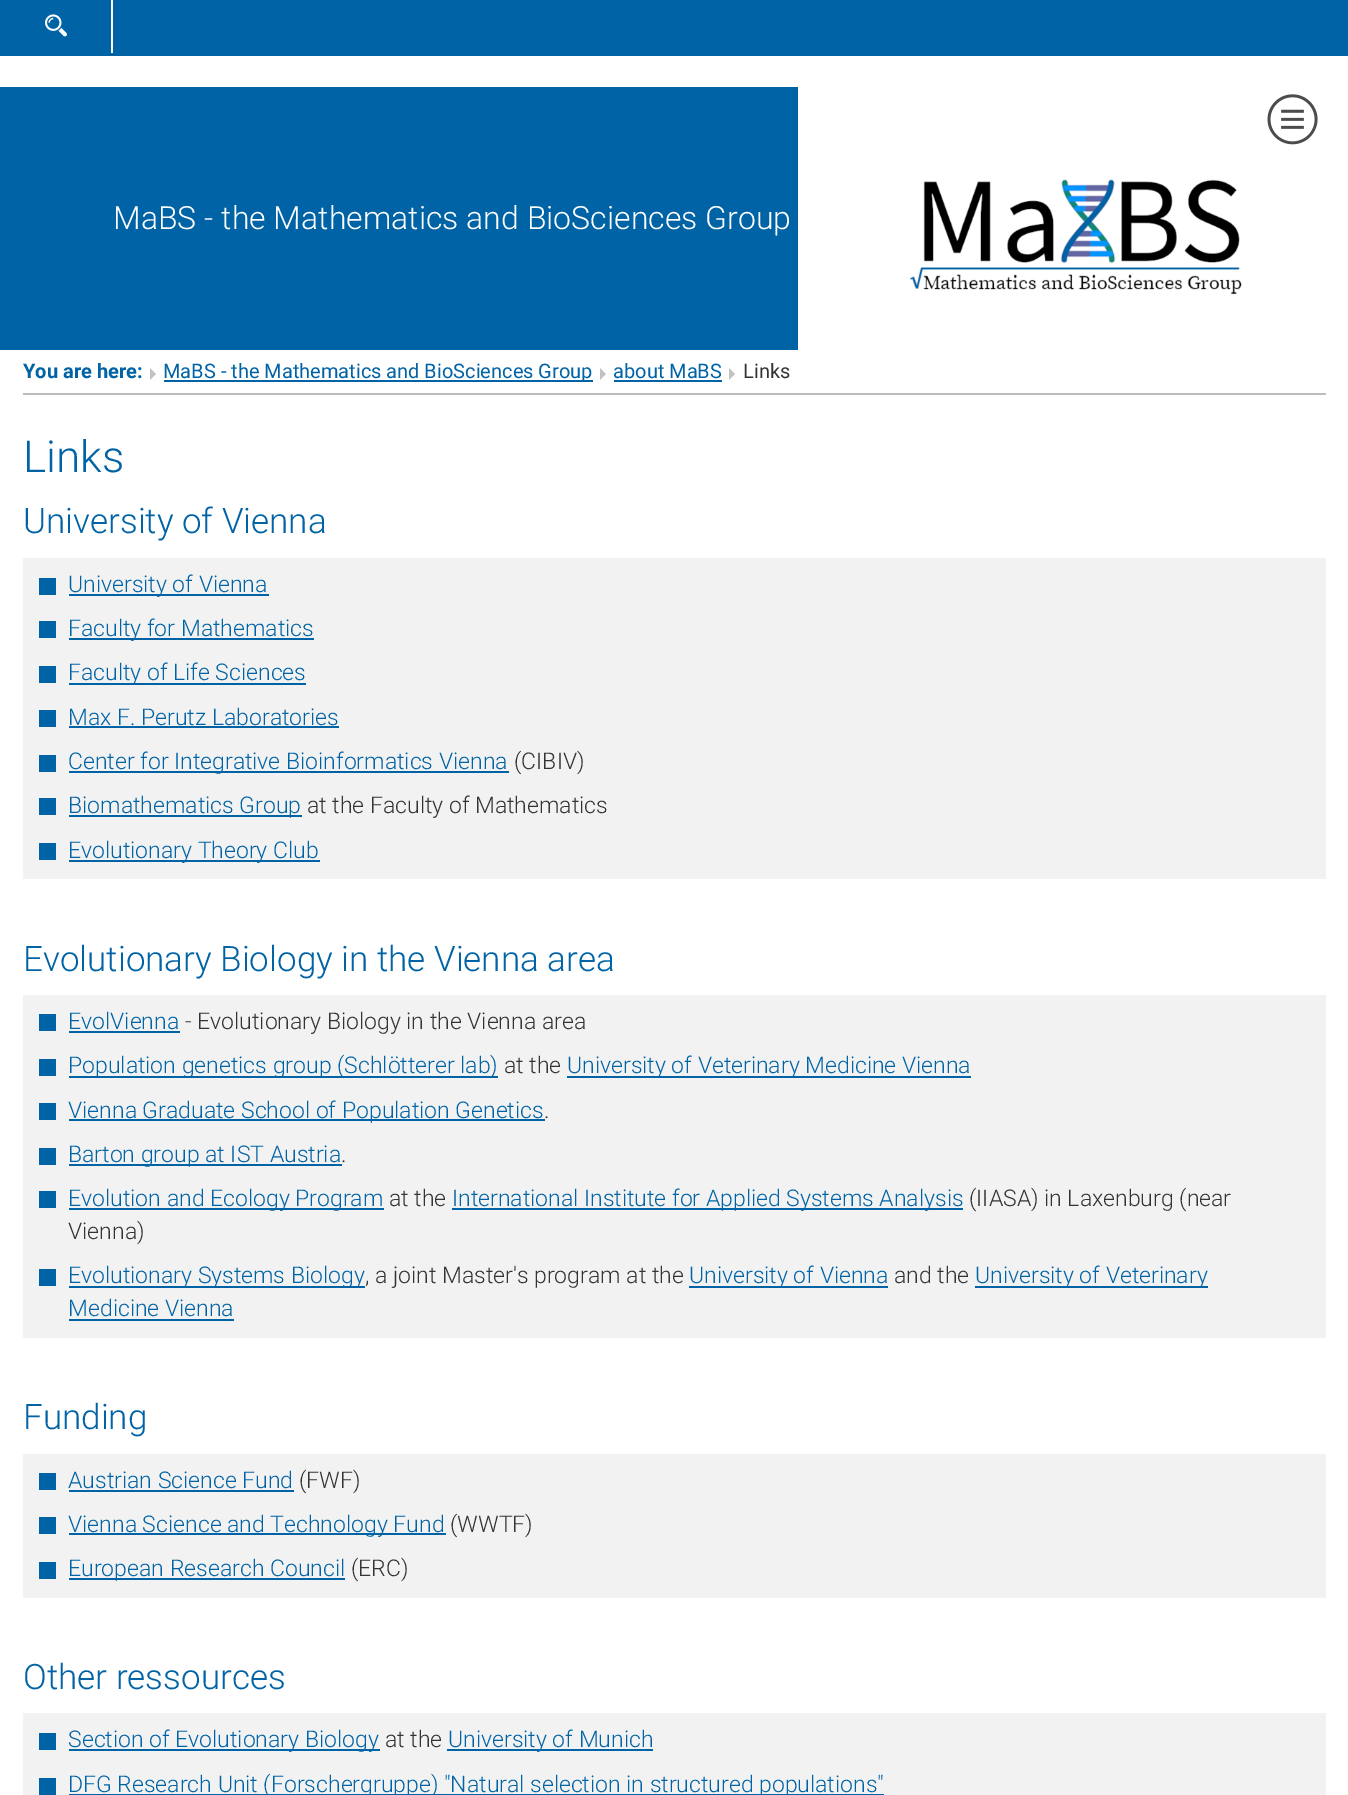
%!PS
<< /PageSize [1348 1795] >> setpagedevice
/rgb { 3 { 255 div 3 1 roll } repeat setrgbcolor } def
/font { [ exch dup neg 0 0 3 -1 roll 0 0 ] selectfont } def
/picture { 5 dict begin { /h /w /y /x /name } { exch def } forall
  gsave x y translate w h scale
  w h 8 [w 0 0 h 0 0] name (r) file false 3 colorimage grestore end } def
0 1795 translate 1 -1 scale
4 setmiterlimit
255 255 255 rgb
0 0 1348 1795 rectfill
0 99 166 rgb
0 0 1348 56 rectfill
255 255 255 rgb
111 0 2 53 rectfill
(img/1.rgb) 45 14 22 23 picture
(img/2.rgb) 1267 94 51 51 picture
0 99 166 rgb
0 87 798 263 rectfill
(img/3.rgb) 910 179 332 116 picture
194 194 194 rgb
150 368 moveto 150 380 lineto 156 374 lineto closepath fill
0 99 166 rgb
164 380 429 2 rectfill
194 194 194 rgb
600 368 moveto 600 380 lineto 606 374 lineto closepath fill
0 99 166 rgb
614 380 108 2 rectfill
194 194 194 rgb
729 368 moveto 729 380 lineto 735 374 lineto closepath fill
[
  [23 393 1303 2 189 189 189]
  [23 558 1303 321 242 242 242]
  [39 578 17 17 0 99 166]
  [69 594 200 2 0 99 166]
  [39 621 17 17 0 99 166]
  [69 638 245 2 0 99 166]
  [39 666 17 17 0 99 166]
  [69 683 237 2 0 99 166]
  [39 710 17 17 0 99 166]
  [69 726 270 2 0 99 166]
  [39 755 17 17 0 99 166]
  [69 771 440 2 0 99 166]
  [39 798 17 17 0 99 166]
  [69 815 233 2 0 99 166]
  [39 843 17 17 0 99 166]
  [69 860 251 2 0 99 166]
  [23 995 1303 343 242 242 242]
  [39 1014 17 17 0 99 166]
  [69 1031 111 2 0 99 166]
  [39 1059 17 17 0 99 166]
  [69 1076 429 2 0 99 166]
  [567 1076 404 2 0 99 166]
  [39 1103 17 17 0 99 166]
  [69 1119 476 2 0 99 166]
  [39 1148 17 17 0 99 166]
  [69 1164 273 2 0 99 166]
  [39 1191 17 17 0 99 166]
  [69 1208 315 2 0 99 166]
  [452 1208 511 2 0 99 166]
  [39 1269 17 17 0 99 166]
  [69 1286 296 2 0 99 166]
  [689 1286 199 2 0 99 166]
  [975 1286 233 2 0 99 166]
  [69 1319 165 2 0 99 166]
  [23 1454 1303 144 242 242 242]
  [39 1473 17 17 0 99 166]
  [69 1490 225 2 0 99 166]
  [39 1517 17 17 0 99 166]
  [69 1533 377 2 0 99 166]
  [39 1562 17 17 0 99 166]
  [69 1578 276 2 0 99 166]
  [23 1713 1303 82 242 242 242]
  [39 1733 17 17 0 99 166]
  [69 1749 311 2 0 99 166]
  [447 1749 206 2 0 99 166]
  [39 1778 17 17 0 99 166]
  [69 1794 815 1 0 99 166]
] { aload pop rgb rectfill } forall
/Roboto-Light 32 font
255 255 255 rgb
113 229 moveto (MaBS - the Mathematics and BioSciences Group) show
/Roboto-Bold 20 font
0 99 166 rgb
23 378 moveto (You are here:) show
/Roboto-Regular 20 font
163 378 moveto (MaBS - the Mathematics and BioSciences Group) show
613 378 moveto (about MaBS) show
51 51 51 rgb
743 378 moveto (Links) show
/Roboto-Light 44 font
0 99 166 rgb
23 472 moveto (Links) show
/Roboto-Light 35 font
23 533 moveto (University of Vienna) show
/Roboto-Light 23 font
[
  [(University of Vienna) 68 592]
  [(Faculty for Mathematics) 68 636]
  [(Faculty of Life Sciences) 68 680]
  [(Max F. Perutz Laboratories) 68 725]
  [(Center for Integrative Bioinformatics Vienna) 68 769]
] { aload pop moveto show } forall
51 51 51 rgb
514 769 moveto (\(CIBIV\)) show
0 99 166 rgb
68 813 moveto (Biomathematics Group) show
51 51 51 rgb
307 813 moveto (at the Faculty of Mathematics) show
0 99 166 rgb
68 858 moveto (Evolutionary Theory Club) show
/Roboto-Light 35 font
23 971 moveto (Evolutionary Biology in the Vienna area) show
/Roboto-Light 23 font
68 1029 moveto (EvolVienna) show
51 51 51 rgb
185 1029 moveto (- Evolutionary Biology in the Vienna area) show
0 99 166 rgb
68 1073 moveto (Population genetics group \(Schlötterer lab\)) show
51 51 51 rgb
504 1073 moveto (at the) show
0 99 166 rgb
567 1073 moveto (University of Veterinary Medicine Vienna) show
68 1118 moveto (Vienna Graduate School of Population Genetics) show
51 51 51 rgb
544 1118 moveto (.) show
0 99 166 rgb
68 1162 moveto (Barton group at IST Austria) show
51 51 51 rgb
341 1162 moveto (.) show
0 99 166 rgb
68 1206 moveto (Evolution and Ecology Program) show
51 51 51 rgb
389 1206 moveto (at the) show
0 99 166 rgb
452 1206 moveto (International Institute for Applied Systems Analysis) show
51 51 51 rgb
969 1206 moveto (\(IIASA\) in Laxenburg \(near) show
68 1239 moveto (Vienna\)) show
0 99 166 rgb
68 1283 moveto (Evolutionary Systems Biology) show
51 51 51 rgb
365 1283 moveto (, a joint Master's program at the) show
0 99 166 rgb
689 1283 moveto (University of Vienna) show
51 51 51 rgb
894 1283 moveto (and the) show
0 99 166 rgb
975 1283 moveto (University of Veterinary) show
68 1316 moveto (Medicine Vienna) show
/Roboto-Light 35 font
23 1429 moveto (Funding) show
/Roboto-Light 23 font
68 1488 moveto (Austrian Science Fund) show
51 51 51 rgb
299 1488 moveto (\(FWF\)) show
0 99 166 rgb
68 1532 moveto (Vienna Science and Technology Fund) show
51 51 51 rgb
450 1532 moveto (\(WWTF\)) show
0 99 166 rgb
68 1576 moveto (European Research Council) show
51 51 51 rgb
351 1576 moveto (\(ERC\)) show
/Roboto-Light 35 font
0 99 166 rgb
23 1689 moveto (Other ressources) show
/Roboto-Light 23 font
68 1747 moveto (Section of Evolutionary Biology) show
51 51 51 rgb
385 1747 moveto (at the) show
0 99 166 rgb
448 1747 moveto (University of Munich) show
68 1792 moveto (DFG Research Unit \(Forschergruppe\) "Natural selection in structured populations") show
showpage
